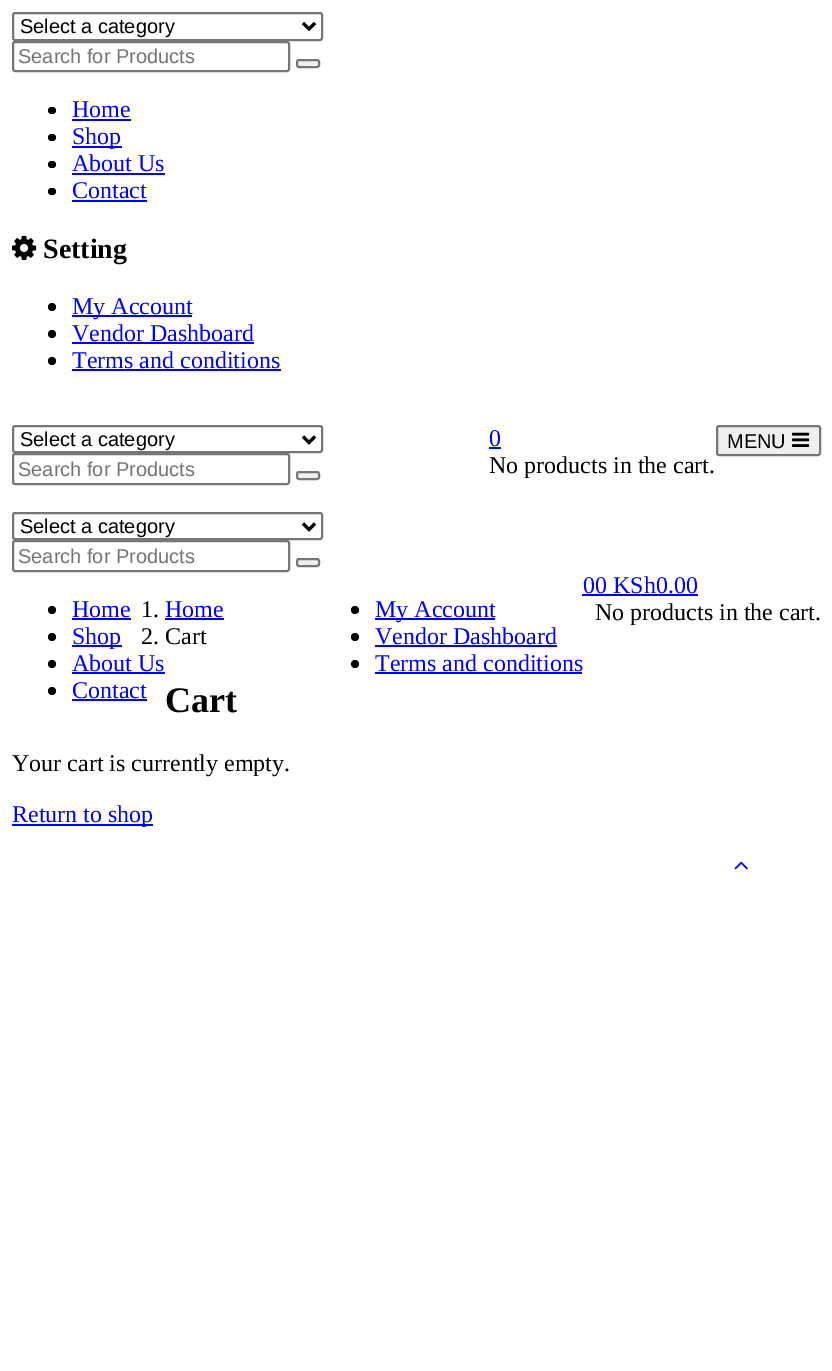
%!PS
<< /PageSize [832 1371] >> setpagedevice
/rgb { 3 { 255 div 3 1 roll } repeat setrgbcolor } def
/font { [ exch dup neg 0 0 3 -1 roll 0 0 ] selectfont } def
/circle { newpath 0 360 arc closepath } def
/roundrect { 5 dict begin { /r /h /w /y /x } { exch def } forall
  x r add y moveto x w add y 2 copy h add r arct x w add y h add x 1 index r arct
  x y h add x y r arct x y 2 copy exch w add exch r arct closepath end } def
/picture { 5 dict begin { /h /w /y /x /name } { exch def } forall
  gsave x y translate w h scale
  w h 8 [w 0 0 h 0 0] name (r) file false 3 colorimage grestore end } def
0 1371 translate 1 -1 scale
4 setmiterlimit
255 255 255 rgb
0 0 832 1371 rectfill
118 118 118 rgb
2 setlinewidth
13 13 309 27 2 roundrect stroke
0 0 0 rgb
3 setlinewidth
303 23 moveto 309 29 lineto 315 23 lineto stroke
118 118 118 rgb
2 setlinewidth
13 42 276 29 2 roundrect stroke
239 239 239 rgb
297 60 22 7 2 roundrect gsave fill grestore
118 118 118 rgb
stroke
0 0 0 rgb
48 107 8 7 3.5 roundrect fill
0 0 238 rgb
72 119 59 2 rectfill
0 0 0 rgb
48 134 8 7 3.5 roundrect fill
0 0 238 rgb
72 146 50 2 rectfill
0 0 0 rgb
48 161 8 7 3.5 roundrect fill
0 0 238 rgb
72 173 93 2 rectfill
0 0 0 rgb
48 188 8 7 3.5 roundrect fill
0 0 238 rgb
72 200 75 2 rectfill
(img/1.rgb) 12 235 25 25 picture
0 0 0 rgb
52 307 4 circle fill
0 0 238 rgb
72 315 120 2 rectfill
0 0 0 rgb
52 334 4 circle fill
0 0 238 rgb
72 342 182 2 rectfill
0 0 0 rgb
52 361 4 circle fill
0 0 238 rgb
72 369 209 2 rectfill
118 118 118 rgb
13 426 309 26 2 roundrect stroke
0 0 0 rgb
3 setlinewidth
303 436.5 moveto 309 442.5 lineto 315 436.5 lineto stroke
118 118 118 rgb
2 setlinewidth
13 454 276 30 2 roundrect stroke
239 239 239 rgb
297 472 22 7 2 roundrect gsave fill grestore
118 118 118 rgb
stroke
0 0 238 rgb
489 447 12 2 rectfill
239 239 239 rgb
717 426 103 29 2 roundrect gsave fill grestore
118 118 118 rgb
stroke
(img/2.rgb) 792 432 18 15 picture
13 513 309 26 2 roundrect stroke
0 0 0 rgb
3 setlinewidth
303 523.5 moveto 309 529.5 lineto 315 523.5 lineto stroke
118 118 118 rgb
2 setlinewidth
13 541 276 30 2 roundrect stroke
239 239 239 rgb
297 559 22 7 2 roundrect gsave fill grestore
118 118 118 rgb
stroke
0 0 0 rgb
52 610 4 circle fill
0 0 238 rgb
72 618 59 2 rectfill
0 0 0 rgb
52 637 4 circle fill
0 0 238 rgb
72 645 50 2 rectfill
0 0 0 rgb
52 664 4 circle fill
0 0 238 rgb
72 672 93 2 rectfill
0 0 0 rgb
52 691 4 circle fill
0 0 238 rgb
72 699 75 2 rectfill
582 594 116 2 rectfill
0 0 0 rgb
355 610 4 circle fill
0 0 238 rgb
375 618 120 2 rectfill
0 0 0 rgb
355 637 4 circle fill
0 0 238 rgb
375 645 182 2 rectfill
0 0 0 rgb
355 664 4 circle fill
[
  [375 672 207 2 0 0 238]
  [165 618 59 2 0 0 238]
  [12 824 141 2 0 0 238]
] { aload pop rgb rectfill } forall
(img/3.rgb) 734 861 14 9 picture
/LiberationSans-Regular 20 font
0 0 0 rgb
20 33 moveto (Select a category) show
117 117 117 rgb
18 63 moveto (Search for Products) show
/LiberationSerif-Regular 24 font
0 0 238 rgb
[
  [(Home) 72 117]
  [(Shop) 72 144]
  [(About Us) 72 171]
  [(Contact) 72 198]
] { aload pop moveto show } forall
/LiberationSerif-Bold 28 font
0 0 0 rgb
43 258 moveto (Setting) show
/LiberationSerif-Regular 24 font
0 0 238 rgb
[
  [(My Account) 72 314]
  [(Vendor Dashboard) 72 341]
  [(Terms and conditions) 72 368]
] { aload pop moveto show } forall
/LiberationSans-Regular 20 font
0 0 0 rgb
20 446 moveto (Select a category) show
117 117 117 rgb
18 476 moveto (Search for Products) show
/LiberationSerif-Regular 24 font
0 0 238 rgb
489 446 moveto (0) show
0 0 0 rgb
489 473 moveto (No products in the cart.) show
/LiberationSans-Regular 20 font
727 448 moveto (MENU) show
20 533 moveto (Select a category) show
117 117 117 rgb
18 563 moveto (Search for Products) show
/LiberationSerif-Regular 24 font
0 0 238 rgb
[
  [(Home) 72 617]
  [(Shop) 72 644]
  [(About Us) 72 671]
  [(Contact) 72 698]
  [(0) 583 593]
  [(0 KSh0.00) 595 593]
] { aload pop moveto show } forall
0 0 0 rgb
595 620 moveto (No products in the cart.) show
0 0 238 rgb
[
  [(My Account) 375 617]
  [(Vendor Dashboard) 375 644]
  [(Terms and conditions) 375 671]
] { aload pop moveto show } forall
0 0 0 rgb
141 617 moveto (1.) show
0 0 238 rgb
165 617 moveto (Home) show
0 0 0 rgb
141 644 moveto (2. Cart) show
/LiberationSerif-Bold 36 font
165 712 moveto (Cart) show
/LiberationSerif-Regular 24 font
12 771 moveto (Your cart is currently empty.) show
0 0 238 rgb
12 822 moveto (Return to shop) show
showpage
